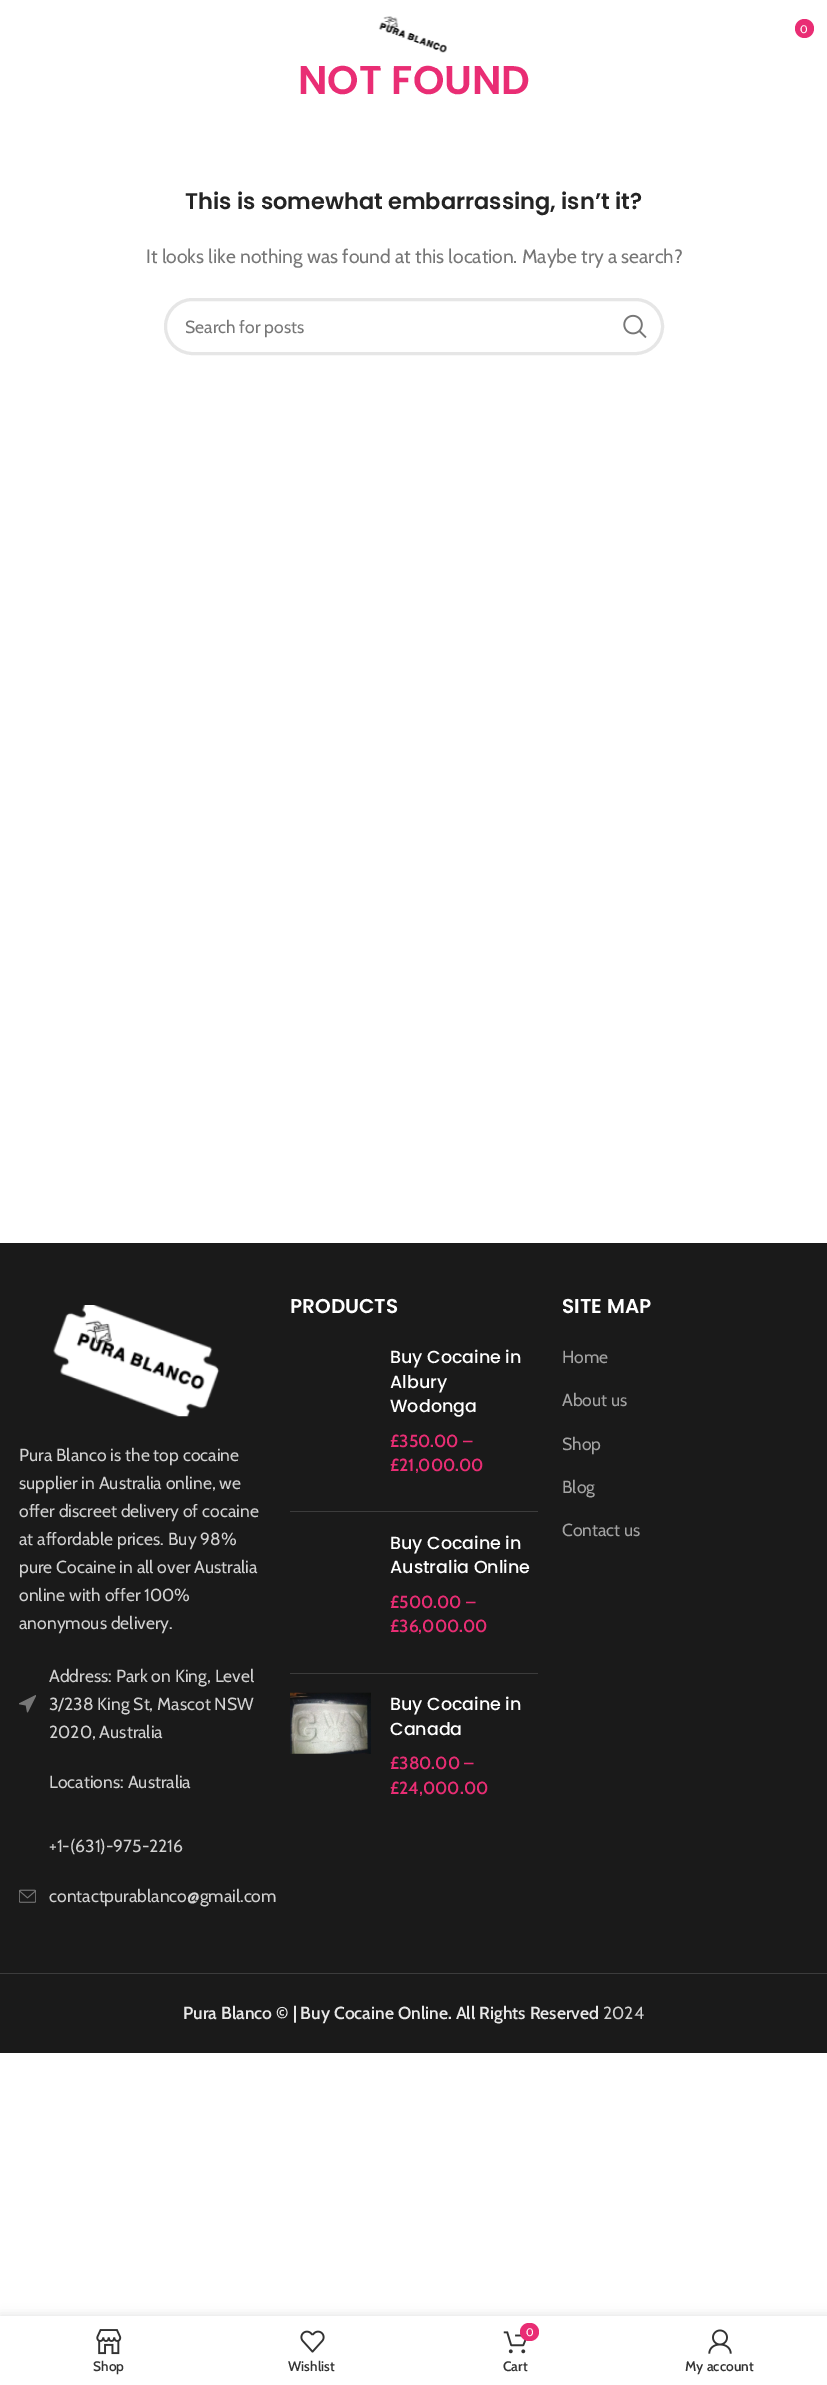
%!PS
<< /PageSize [827 2385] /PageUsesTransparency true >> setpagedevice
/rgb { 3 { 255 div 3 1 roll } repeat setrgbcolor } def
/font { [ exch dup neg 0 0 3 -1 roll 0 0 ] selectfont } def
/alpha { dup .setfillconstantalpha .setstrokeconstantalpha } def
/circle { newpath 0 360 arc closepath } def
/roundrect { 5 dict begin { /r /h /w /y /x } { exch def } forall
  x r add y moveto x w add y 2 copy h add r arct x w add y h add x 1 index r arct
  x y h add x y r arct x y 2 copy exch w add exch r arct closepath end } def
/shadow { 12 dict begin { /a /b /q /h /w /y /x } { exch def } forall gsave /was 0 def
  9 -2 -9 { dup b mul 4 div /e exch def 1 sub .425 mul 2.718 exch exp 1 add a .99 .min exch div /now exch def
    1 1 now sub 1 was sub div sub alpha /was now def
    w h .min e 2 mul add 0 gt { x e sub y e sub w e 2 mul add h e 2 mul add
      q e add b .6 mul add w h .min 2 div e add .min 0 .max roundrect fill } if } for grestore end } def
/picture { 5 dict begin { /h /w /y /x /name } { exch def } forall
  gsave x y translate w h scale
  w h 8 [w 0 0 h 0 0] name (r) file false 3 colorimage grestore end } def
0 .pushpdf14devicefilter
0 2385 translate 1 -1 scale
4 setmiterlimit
255 255 255 rgb
0 0 827 2385 rectfill
233 45 116 rgb
804.5 28.5 9.5 circle fill
230 230 230 rgb
3 setlinewidth
165.5 299.5 497 54 27 roundrect stroke
(img/2.rgb) 623 314 24 25 picture
[
  [0 1243 827 810 26 26 26]
  [290 1511 248 1 60 60 60]
  [290 1673 248 1 60 60 60]
] { aload pop rgb rectfill } forall
(img/3.rgb) 290 1692 81 62 picture
(img/4.rgb) 53 1305 167 112 picture
(img/5.rgb) 19 1695 17 18 picture
(img/6.rgb) 19 1889 17 14 picture
0 1973 827 1 rectfill
0 0 0 rgb
0 2316 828 69 0 5.5 0.12 shadow
255 255 255 rgb
0 2316 827 69 rectfill
(img/7.rgb) 96 2329 26 26 picture
(img/8.rgb) 300 2330 25 23 picture
(img/9.rgb) 503 2331 24 23 picture
233 45 116 rgb
520 2323 19 18 9 roundrect fill
(img/10.rgb) 708 2329 24 25 picture
/Cabin-Regular 11 font
255 255 255 rgb
800 33 moveto (0) show
/Poppins-SemiBold 40 font
233 45 116 rgb
298 94 moveto (NOT FOUND) show
(img/1.rgb) 378 16 69 52 picture
/Poppins-SemiBold 22.5 font
36 36 36 rgb
185 209 moveto (This is somewhat embarrassing, isn’t it?) show
/Cabin-Regular 19.25 font
119 119 119 rgb
146 263 moveto (It looks like nothing was found at this location. Maybe try a search?) show
/Cabin-Regular 17.5 font
185 333 moveto (Search for posts) show
/Poppins-SemiBold 20 font
255 255 255 rgb
290 1313 moveto (PRODUCTS) show
/Poppins-Medium 17.5 font
[
  [(Buy Cocaine in) 390 1363]
  [(Albury) 390 1388]
  [(Wodonga) 390 1412]
] { aload pop moveto show } forall
/Cabin-SemiBold 17.5 font
233 45 116 rgb
390 1447 moveto (£350.00) show
/Cabin-Regular 17.5 font
463 1447 moveto (–) show
/Cabin-SemiBold 17.5 font
390 1471 moveto (£21,000.00) show
/Poppins-Medium 17.5 font
255 255 255 rgb
390 1549 moveto (Buy Cocaine in) show
390 1573 moveto (Australia Online) show
/Cabin-SemiBold 17.5 font
233 45 116 rgb
390 1608 moveto (£500.00) show
/Cabin-Regular 17.5 font
466 1608 moveto (–) show
/Cabin-SemiBold 17.5 font
390 1632 moveto (£36,000.00) show
/Poppins-Medium 17.5 font
255 255 255 rgb
390 1710 moveto (Buy Cocaine in) show
390 1735 moveto (Canada) show
/Cabin-SemiBold 17.5 font
233 45 116 rgb
390 1769 moveto (£380.00) show
/Cabin-Regular 17.5 font
464 1769 moveto (–) show
/Cabin-SemiBold 17.5 font
390 1794 moveto (£24,000.00) show
/Poppins-SemiBold 20 font
255 255 255 rgb
562 1313 moveto (SITE MAP) show
/Cabin-Regular 17.5 font
163 163 163 rgb
[
  [(Home) 562 1363]
  [(About us) 562 1406]
  [(Shop) 562 1450]
  [(Blog) 562 1493]
  [(Contact us) 562 1536]
] { aload pop moveto show } forall
209 209 209 rgb
[
  [(Pura Blanco is the top cocaine) 19 1461]
  [(supplier in Australia online, we) 19 1489]
  [(offer discreet delivery of cocaine) 19 1517]
  [(at affordable prices. Buy 98%) 19 1545]
  [(pure Cocaine in all over Australia) 19 1573]
  [(online with offer 100%) 19 1601]
  [(anonymous delivery.) 19 1629]
  [(Address: Park on King, Level) 49 1682]
  [(3/238 King St, Mascot NSW) 49 1710]
  [(2020, Australia) 49 1738]
  [(Locations: Australia) 49 1788]
  [(+1-\(631\)-975-2216) 49 1852]
  [(contactpurablanco@gmail.com) 49 1902]
] { aload pop moveto show } forall
/Cabin-SemiBold 17.5 font
232 232 232 rgb
183 2019 moveto (Pura Blanco © | Buy Cocaine Online. All Rights Reserved) show
/Cabin-Regular 17.5 font
209 209 209 rgb
603 2019 moveto (2024) show
/Cabin-SemiBold 13.75 font
51 51 51 rgb
93 2371 moveto (Shop) show
288 2371 moveto (Wishlist) show
/Cabin-Regular 11 font
255 255 255 rgb
526 2336 moveto (0) show
/Cabin-SemiBold 13.75 font
51 51 51 rgb
503 2371 moveto (Cart) show
685 2371 moveto (My account) show
.poppdf14devicefilter showpage
